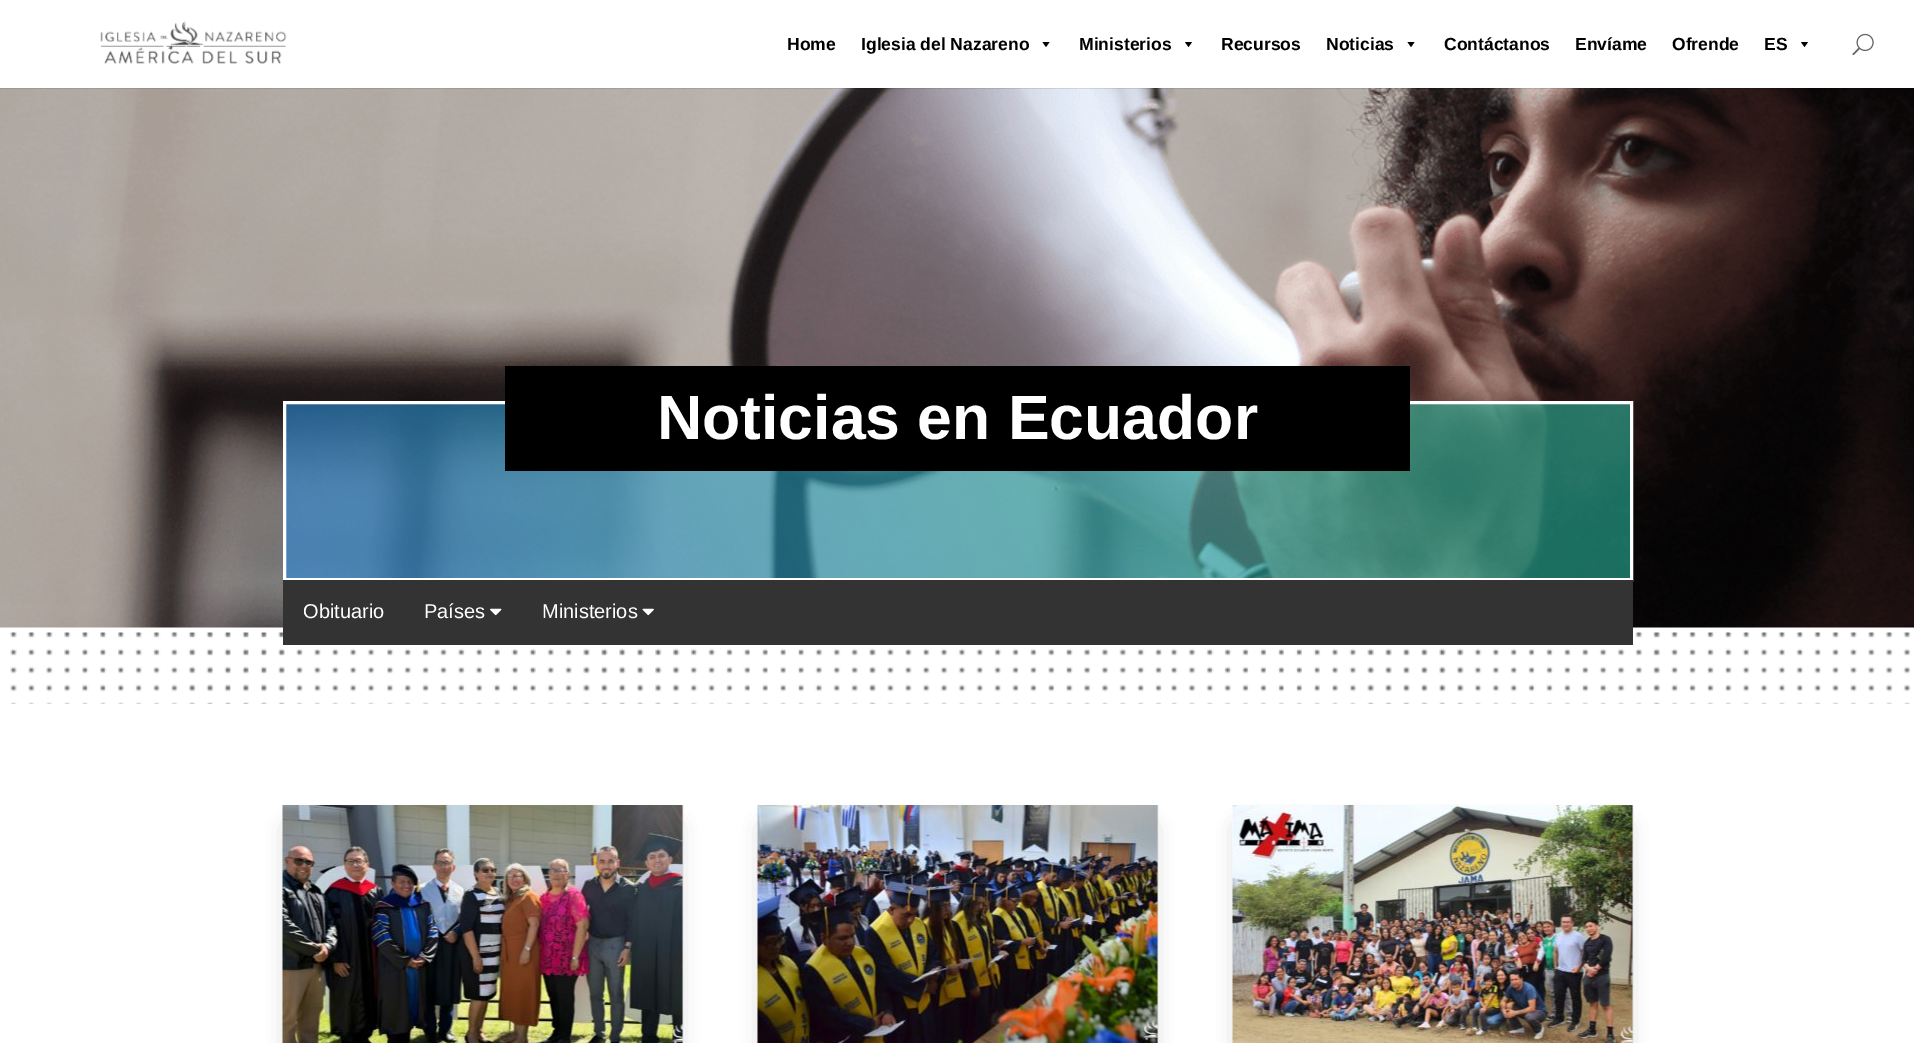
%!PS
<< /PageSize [1914 1043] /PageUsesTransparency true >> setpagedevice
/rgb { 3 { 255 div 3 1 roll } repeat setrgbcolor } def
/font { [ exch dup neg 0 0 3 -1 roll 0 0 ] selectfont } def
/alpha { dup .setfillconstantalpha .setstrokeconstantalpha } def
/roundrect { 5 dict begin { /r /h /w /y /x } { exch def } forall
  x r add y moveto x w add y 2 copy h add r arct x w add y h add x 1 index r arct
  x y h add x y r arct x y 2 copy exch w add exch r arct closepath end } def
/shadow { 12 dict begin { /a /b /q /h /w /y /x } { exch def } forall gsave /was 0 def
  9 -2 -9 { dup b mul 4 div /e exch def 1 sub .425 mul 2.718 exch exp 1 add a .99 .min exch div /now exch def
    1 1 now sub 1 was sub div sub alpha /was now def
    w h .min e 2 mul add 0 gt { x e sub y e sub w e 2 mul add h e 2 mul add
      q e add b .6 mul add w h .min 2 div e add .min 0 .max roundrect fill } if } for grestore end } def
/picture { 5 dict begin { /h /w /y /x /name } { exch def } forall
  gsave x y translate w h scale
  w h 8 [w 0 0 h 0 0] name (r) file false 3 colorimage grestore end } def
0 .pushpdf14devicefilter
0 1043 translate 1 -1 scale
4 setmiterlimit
255 255 255 rgb
0 0 1914 1043 rectfill
(img/3.rgb) 0 88 1914 540 picture
0.1 alpha
0 0 0 rgb
0 88 1787 1 rectfill
1 alpha
(img/1.rgb) 100 21 187 43 picture
1049.5 42 moveto 1046 47 lineto 1042.5 42 lineto closepath fill
1192 42 moveto 1188.5 47 lineto 1185 42 lineto closepath fill
1414.5 42 moveto 1411 47 lineto 1407.5 42 lineto closepath fill
1808 42 moveto 1804.5 47 lineto 1801 42 lineto closepath fill
(img/2.rgb) 1852 33 22 23 picture
255 255 255 rgb
3 setlinewidth
284.5 402.5 1347 177 rectstroke
0 0 0 rgb
505 366 905 105 rectfill
(img/6.rgb) 10 632 1901 72 picture
51 51 51 rgb
283 580 1350 65 rectfill
(img/4.rgb) 490 608 12 8 picture
(img/5.rgb) 642 608 12 8 picture
0 0 0 rgb
290 828 385 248 0 11 0.3 shadow
216 216 216 rgb
1 setlinewidth
283.5 805.5 399 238 rectstroke
(img/7.rgb) 282 805 401 238 picture
0 0 0 rgb
765 828 385 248 0 11 0.3 shadow
216 216 216 rgb
758.5 805.5 399 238 rectstroke
(img/8.rgb) 757 805 401 238 picture
0 0 0 rgb
1240 828 385 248 0 11 0.3 shadow
216 216 216 rgb
1233.5 805.5 399 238 rectstroke
(img/9.rgb) 1232 805 401 238 picture
/LiberationSans-Bold 17.5 font
0 0 0 rgb
[
  [(Home) 787 50]
  [(Iglesia del Nazareno) 861 50]
  [(Ministerios) 1079 50]
  [(Recursos) 1221 50]
  [(Noticias) 1326 50]
  [(Contáctanos) 1444 50]
  [(Envíame) 1575 50]
  [(Ofrende) 1672 50]
  [(ES) 1764 50]
] { aload pop moveto show } forall
/LiberationSans-Bold 62.5 font
255 255 255 rgb
657 439 moveto (Noticias en Ecuador) show
/LiberationSans-Regular 20 font
[
  [(Obituario) 303 618]
  [(Países) 424 618]
  [(Ministerios) 542 618]
] { aload pop moveto show } forall
.poppdf14devicefilter showpage
